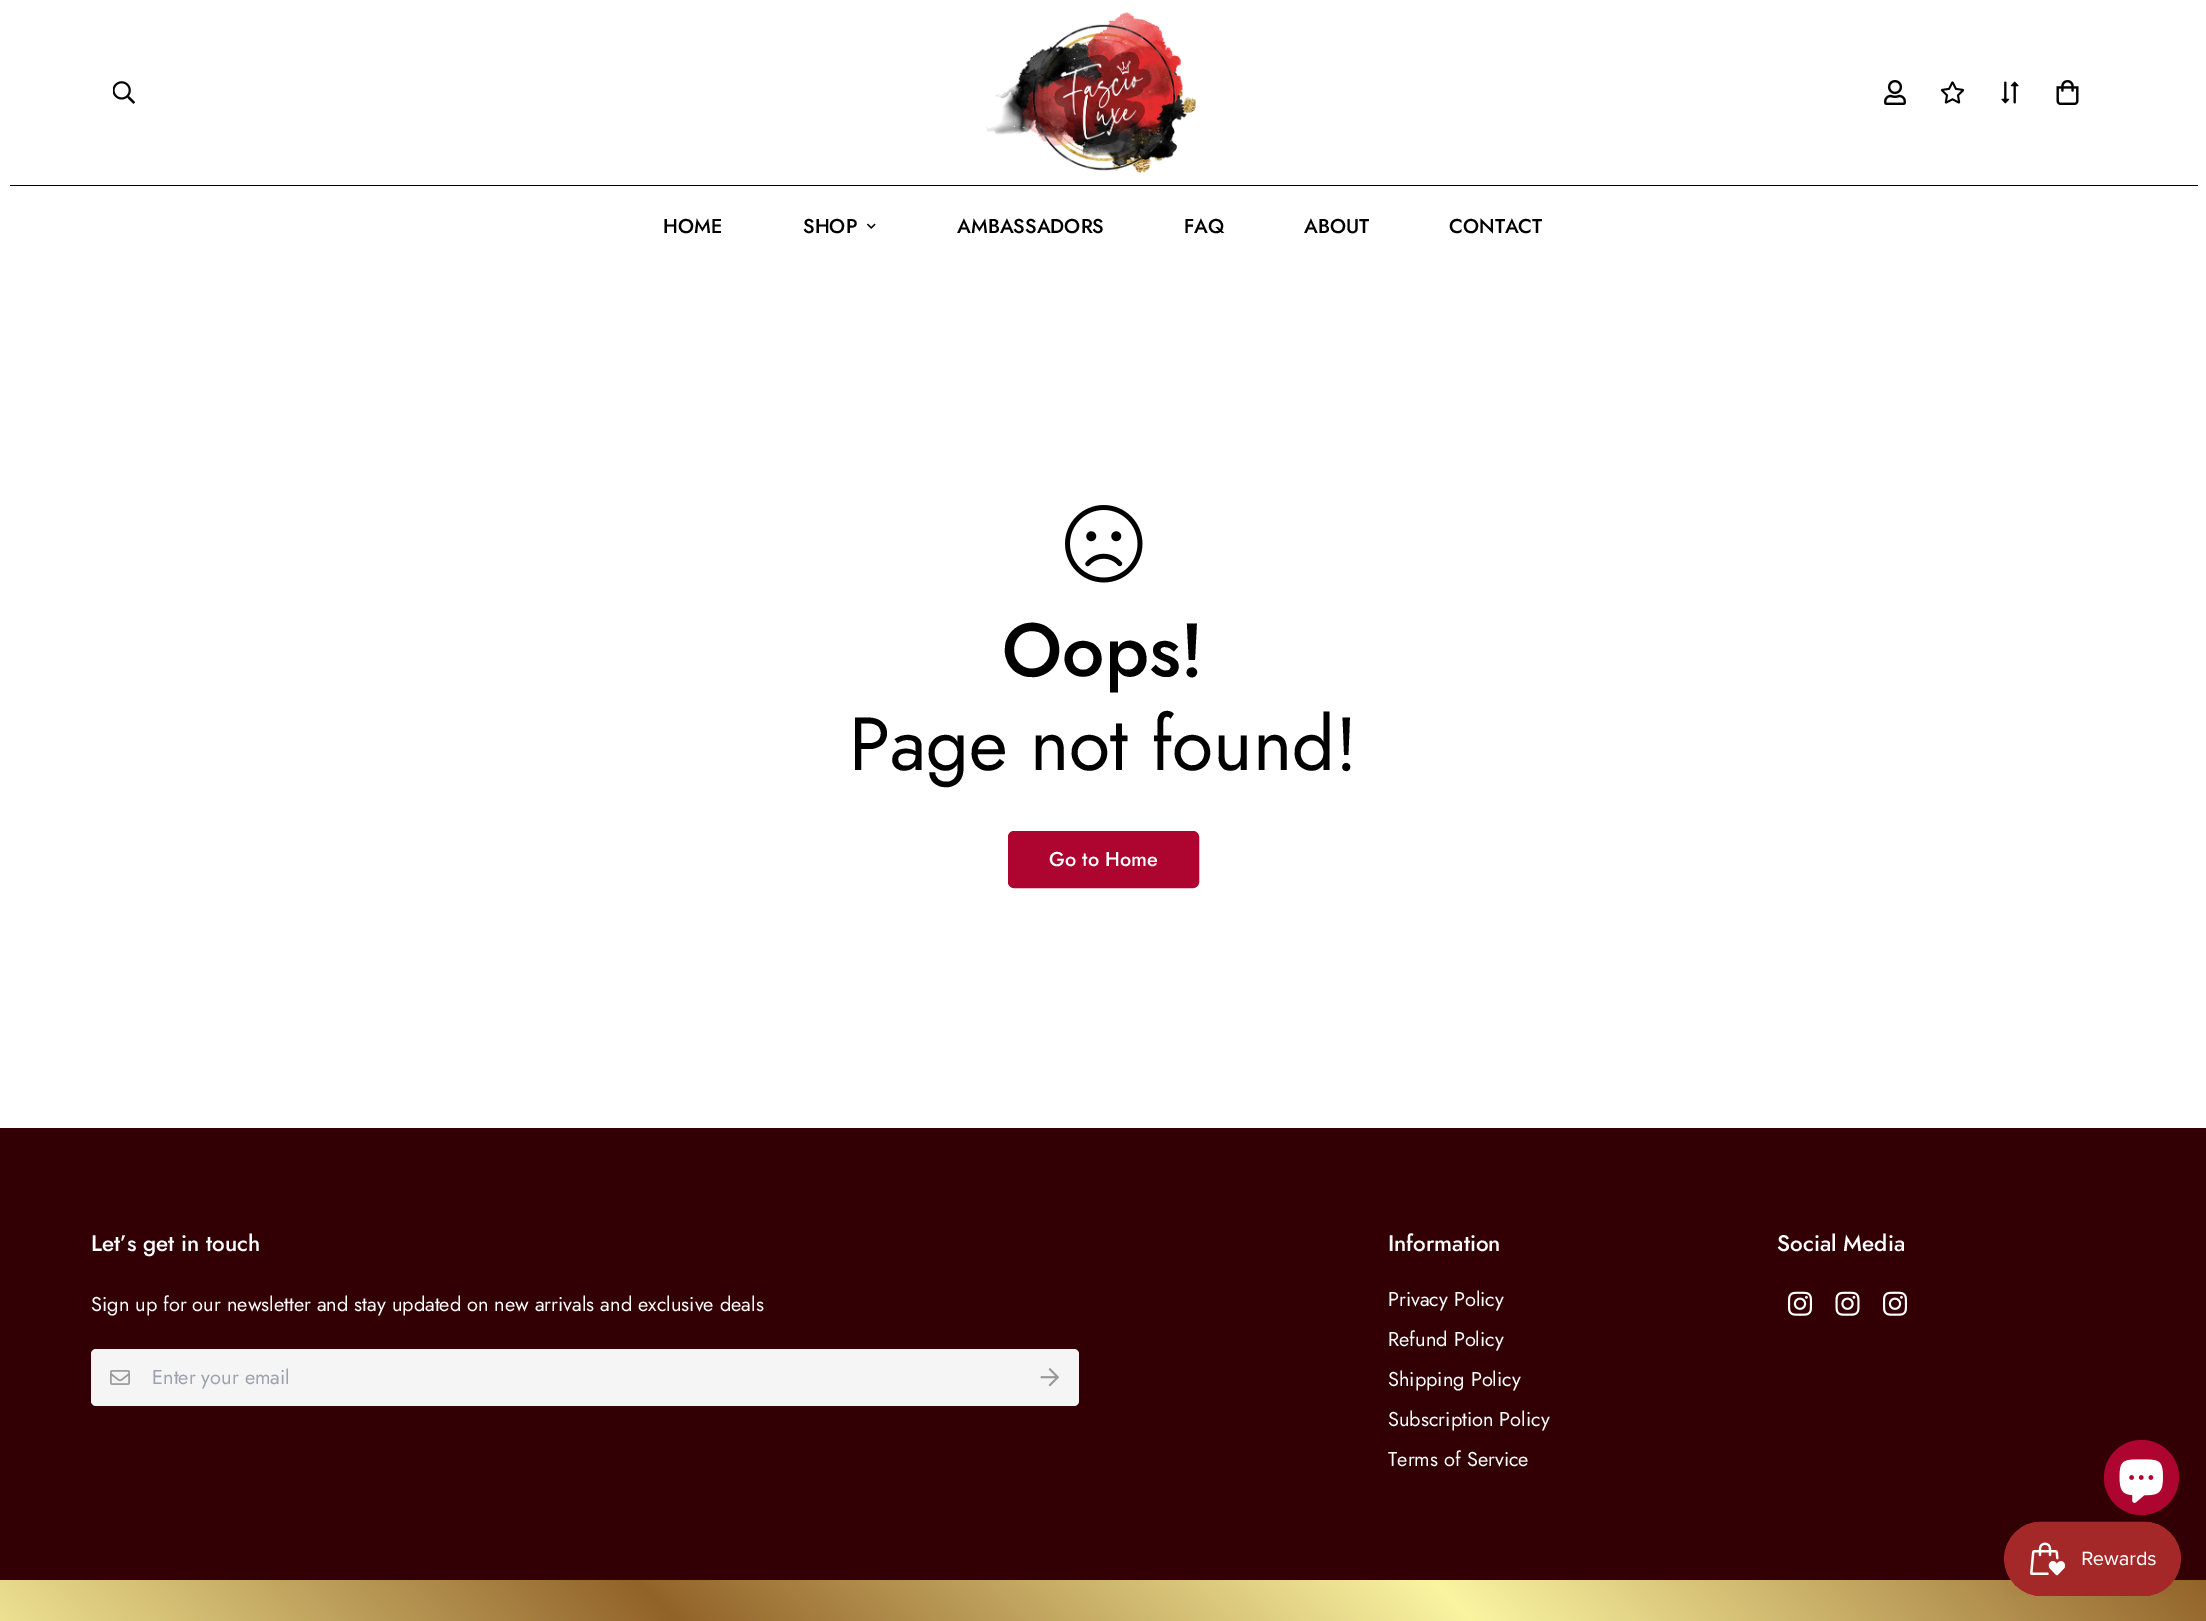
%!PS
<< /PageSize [2206 1621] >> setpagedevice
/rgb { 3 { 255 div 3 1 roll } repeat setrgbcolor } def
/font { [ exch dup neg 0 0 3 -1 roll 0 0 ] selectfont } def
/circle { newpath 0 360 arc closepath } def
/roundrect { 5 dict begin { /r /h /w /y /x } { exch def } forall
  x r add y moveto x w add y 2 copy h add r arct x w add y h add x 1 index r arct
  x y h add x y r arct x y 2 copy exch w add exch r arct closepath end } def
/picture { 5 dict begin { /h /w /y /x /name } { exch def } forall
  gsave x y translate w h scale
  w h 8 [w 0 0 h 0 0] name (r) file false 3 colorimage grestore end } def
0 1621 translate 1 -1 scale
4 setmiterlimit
255 255 255 rgb
0 0 2206 1621 rectfill
0 0 0 rgb
10 185 2188 1 rectfill
(img/1.rgb) 113 81 22 23 picture
(img/2.rgb) 985 12 211 161 picture
(img/3.rgb) 1884 80 22 25 picture
(img/4.rgb) 1940 81 25 23 picture
(img/5.rgb) 2001 81 18 23 picture
(img/6.rgb) 2056 80 23 25 picture
(img/7.rgb) 867 223 9 6 picture
(img/8.rgb) 1065 505 78 78 picture
173 4 48 rgb
1008.5 831.5 190 56 5.5 roundrect gsave fill grestore
stroke
50 0 4 rgb
0 1128 2206 452 rectfill
245 245 245 rgb
91 1349 988 57 5 roundrect fill
(img/9.rgb) 110 1370 20 15 picture
(img/10.rgb) 1040 1368 19 19 picture
(img/11.rgb) 1787 1291 26 25 picture
(img/12.rgb) 1835 1291 25 25 picture
(img/11.rgb) 1882 1291 26 25 picture
gsave 0 1580 moveto 2206 1580 lineto 2206 1621 lineto 0 1621 lineto closepath clip newpath
<< /ShadingType 2 /ColorSpace /DeviceRGB /Coords [517 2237 1690 1063] /Extend [true true] /Function << /FunctionType 3 /Domain [0 1] /Functions [<< /FunctionType 2 /Domain [0 1] /C0 [0.98 0.957 0.631] /C1 [0.573 0.388 0.161] /N 1 >> << /FunctionType 2 /Domain [0 1] /C0 [0.573 0.388 0.161] /C1 [0.98 0.957 0.631] /N 1 >> << /FunctionType 2 /Domain [0 1] /C0 [0.98 0.957 0.631] /C1 [0.573 0.388 0.161] /N 1 >>] /Bounds [0.33 0.67] /Encode [0 1 0 1 0 1] >> >> shfill grestore
173 4 48 rgb
2141.5 1477.5 37.5 circle fill
(img/13.rgb) 2119 1459 44 44 picture
(img/14.rgb) 2004 1521 177 75 picture
/Jost-Medium 20 font
0 0 0 rgb
[
  [(HOME) 663 233]
  [(SHOP) 803 233]
  [(AMBASSADORS) 957 233]
  [(FAQ) 1184 233]
  [(ABOUT) 1304 233]
  [(CONTACT) 1449 233]
] { aload pop moveto show } forall
/Jost-Medium 75 font
1002 676 moveto (Oops!) show
/Jost-Regular 75 font
849 770 moveto (Page not found!) show
/Jost-Medium 20 font
255 255 255 rgb
1049 866 moveto (Go to Home) show
/Jost-Medium 22.5 font
91 1251 moveto (Let’s get in touch) show
/Jost-Regular 20 font
91 1311 moveto (Sign up for our newsletter and stay updated on new arrivals and exclusive deals) show
156 163 175 rgb
152 1384 moveto (Enter your email) show
/Jost-Medium 22.5 font
255 255 255 rgb
1388 1251 moveto (Information) show
/Jost-Regular 20 font
[
  [(Privacy Policy) 1388 1306]
  [(Refund Policy) 1388 1346]
  [(Shipping Policy) 1388 1386]
  [(Subscription Policy) 1388 1426]
  [(Terms of Service) 1388 1466]
] { aload pop moveto show } forall
/Jost-Medium 22.5 font
1777 1251 moveto (Social Media) show
showpage
